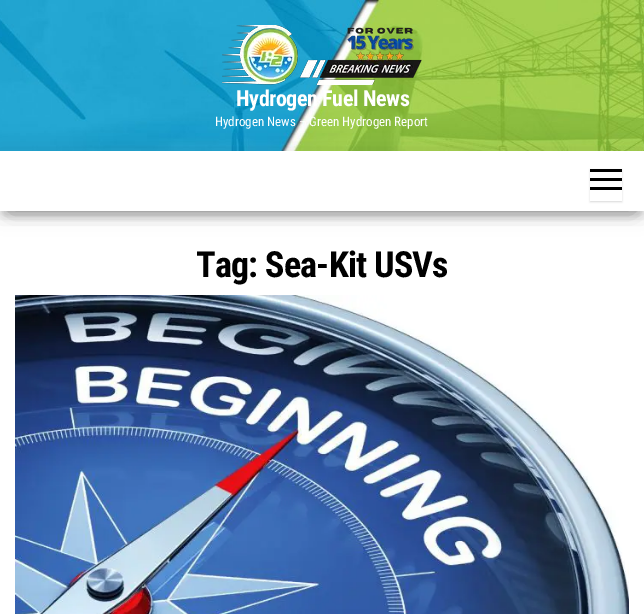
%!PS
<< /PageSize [644 614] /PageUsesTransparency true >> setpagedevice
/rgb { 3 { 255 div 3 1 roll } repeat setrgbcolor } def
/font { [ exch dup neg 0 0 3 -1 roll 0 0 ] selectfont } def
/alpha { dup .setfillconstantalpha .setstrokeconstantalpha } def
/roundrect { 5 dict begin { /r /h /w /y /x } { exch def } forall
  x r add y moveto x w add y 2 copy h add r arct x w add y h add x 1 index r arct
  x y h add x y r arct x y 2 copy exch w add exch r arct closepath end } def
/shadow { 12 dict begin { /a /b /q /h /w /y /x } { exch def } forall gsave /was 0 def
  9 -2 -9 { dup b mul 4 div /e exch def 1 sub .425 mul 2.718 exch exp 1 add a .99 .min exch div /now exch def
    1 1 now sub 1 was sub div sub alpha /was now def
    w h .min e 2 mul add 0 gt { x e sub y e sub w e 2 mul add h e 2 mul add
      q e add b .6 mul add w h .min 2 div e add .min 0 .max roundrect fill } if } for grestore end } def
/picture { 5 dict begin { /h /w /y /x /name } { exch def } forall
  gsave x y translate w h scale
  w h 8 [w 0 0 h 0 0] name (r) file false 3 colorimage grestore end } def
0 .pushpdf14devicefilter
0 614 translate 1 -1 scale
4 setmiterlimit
255 255 255 rgb
0 0 644 614 rectfill
(img/1.rgb) 0 0 644 151 picture
(img/2.rgb) 222 25 200 60 picture
gsave
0 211 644 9 rectclip
0 0 0 rgb
5 164 634 50 0 5 0.2 shadow
grestore
gsave
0 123 moveto 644 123 lineto 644 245 lineto 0 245 lineto closepath 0 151 moveto 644 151 lineto 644 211 lineto 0 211 lineto closepath eoclip newpath
0 0 0 rgb
0 154 644 60 0 10 0.12 shadow
grestore
gsave
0 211 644 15 rectclip
0 0 0 rgb
12 173 620 36 0 10 0.42 shadow
grestore
gsave
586 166 moveto 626 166 lineto 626 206 lineto 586 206 lineto closepath 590 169 moveto 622 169 lineto 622 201 lineto 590 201 lineto closepath eoclip newpath
0 0 0 rgb
590 170 32 32 0 1 0.15 shadow
grestore
[
  [590 169 32 3 0 0 0]
  [590 178 32 3 0 0 0]
  [590 187 32 3 0 0 0]
] { aload pop rgb rectfill } forall
(img/3.rgb) 15 295 614 319 picture
/RobotoCondensed-Bold 22 font
255 255 255 rgb
236 106 moveto -0.4 0 (Hydrogen Fuel News) ashow
/RobotoCondensed-Regular 13 font
215 126 moveto (Hydrogen News – Green Hydrogen Report) show
/RobotoCondensed-Bold 36 font
0 0 0 rgb
196 277 moveto -0.75 0 (Tag: Sea-Kit USVs) ashow
.poppdf14devicefilter showpage
